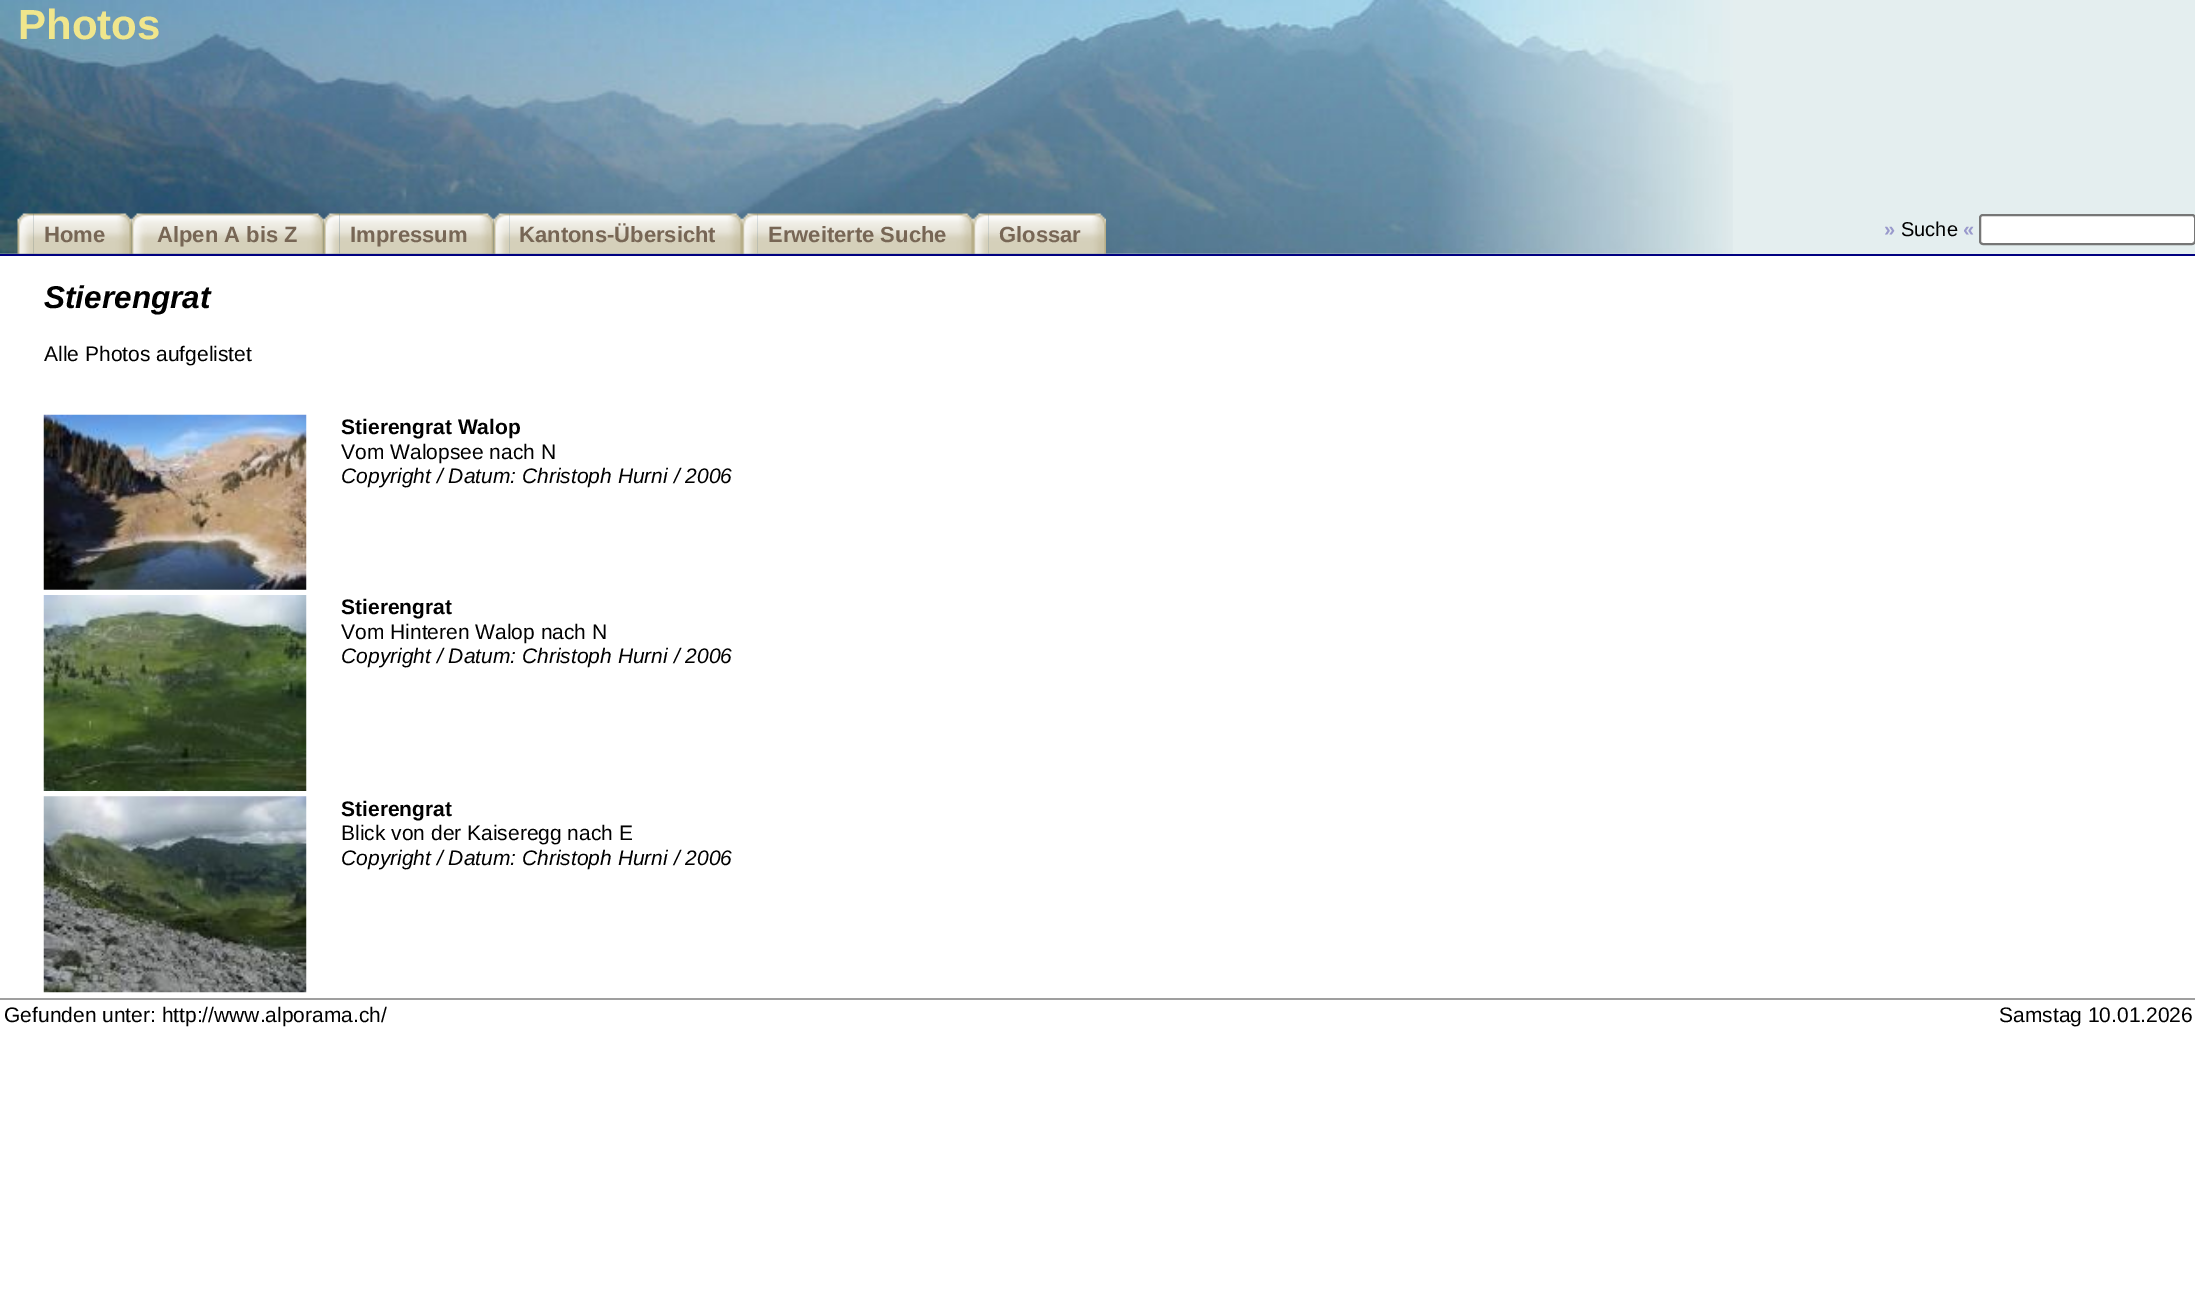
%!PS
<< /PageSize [2195 1308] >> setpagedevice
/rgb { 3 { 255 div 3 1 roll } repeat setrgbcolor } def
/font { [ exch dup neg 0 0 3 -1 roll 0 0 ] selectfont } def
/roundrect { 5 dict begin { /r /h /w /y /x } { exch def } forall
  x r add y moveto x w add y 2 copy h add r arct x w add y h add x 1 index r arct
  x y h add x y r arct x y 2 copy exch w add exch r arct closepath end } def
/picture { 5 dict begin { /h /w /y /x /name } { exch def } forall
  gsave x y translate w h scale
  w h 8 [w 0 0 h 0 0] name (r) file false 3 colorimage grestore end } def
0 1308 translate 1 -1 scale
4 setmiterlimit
255 255 255 rgb
0 0 2195 1308 rectfill
228 238 239 rgb
0 0 2195 254 rectfill
(img/1.rgb) 0 0 1733 254 picture
0 0 128 rgb
0 254 2195 2 rectfill
(img/2.rgb) 17 213 17 41 picture
(img/3.rgb) 33 213 99 41 picture
(img/4.rgb) 131 213 16 41 picture
(img/5.rgb) 147 213 177 41 picture
(img/6.rgb) 323 213 17 41 picture
(img/7.rgb) 339 213 155 41 picture
(img/8.rgb) 493 213 17 41 picture
(img/9.rgb) 509 213 233 41 picture
(img/10.rgb) 742 213 16 41 picture
(img/11.rgb) 757 213 216 41 picture
(img/12.rgb) 973 213 16 41 picture
(img/13.rgb) 988 213 118 41 picture
255 255 255 rgb
1980 215 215 29 3 roundrect gsave fill grestore
118 118 118 rgb
2 setlinewidth
stroke
(img/14.rgb) 43 414 264 176 picture
(img/15.rgb) 43 595 264 196 picture
(img/16.rgb) 43 796 264 197 picture
159 159 159 rgb
0 998 2195 2 rectfill
/LiberationSans-Bold 42 font
240 230 140 rgb
18 39 moveto (Photos) show
/LiberationSans-Bold 22 font
119 102 85 rgb
[
  [(Home) 44 242]
  [(Alpen A bis Z) 157 242]
  [(Impressum) 350 242]
  [(Kantons-Übersicht) 519 242]
  [(Erweiterte Suche) 768 242]
  [(Glossar) 999 242]
] { aload pop moveto show } forall
/LiberationSans-Bold 20 font
153 153 204 rgb
1884 236 moveto (») show
/LiberationSans-Regular 20 font
0 0 0 rgb
1901 236 moveto (Suche) show
/LiberationSans-Bold 20 font
153 153 204 rgb
1963 236 moveto («) show
/LiberationSans-BoldItalic 31.5 font
0 0 0 rgb
44 308 moveto (Stierengrat) show
/LiberationSans-Regular 21 font
44 361 moveto (Alle Photos aufgelistet) show
/LiberationSans-Bold 21 font
341 434 moveto (Stierengrat Walop) show
/LiberationSans-Regular 21 font
341 459 moveto (Vom Walopsee nach N) show
/LiberationSans-Italic 21 font
341 483 moveto (Copyright / Datum: Christoph Hurni / 2006) show
/LiberationSans-Bold 21 font
341 614 moveto (Stierengrat) show
/LiberationSans-Regular 21 font
341 639 moveto (Vom Hinteren Walop nach N) show
/LiberationSans-Italic 21 font
341 663 moveto (Copyright / Datum: Christoph Hurni / 2006) show
/LiberationSans-Bold 21 font
341 816 moveto (Stierengrat) show
/LiberationSans-Regular 21 font
341 840 moveto (Blick von der Kaiseregg nach E) show
/LiberationSans-Italic 21 font
341 865 moveto (Copyright / Datum: Christoph Hurni / 2006) show
/LiberationSans-Regular 21 font
4 1022 moveto (Gefunden unter: http://www.alporama.ch/) show
1999 1022 moveto (Samstag 10.01.2026) show
showpage
